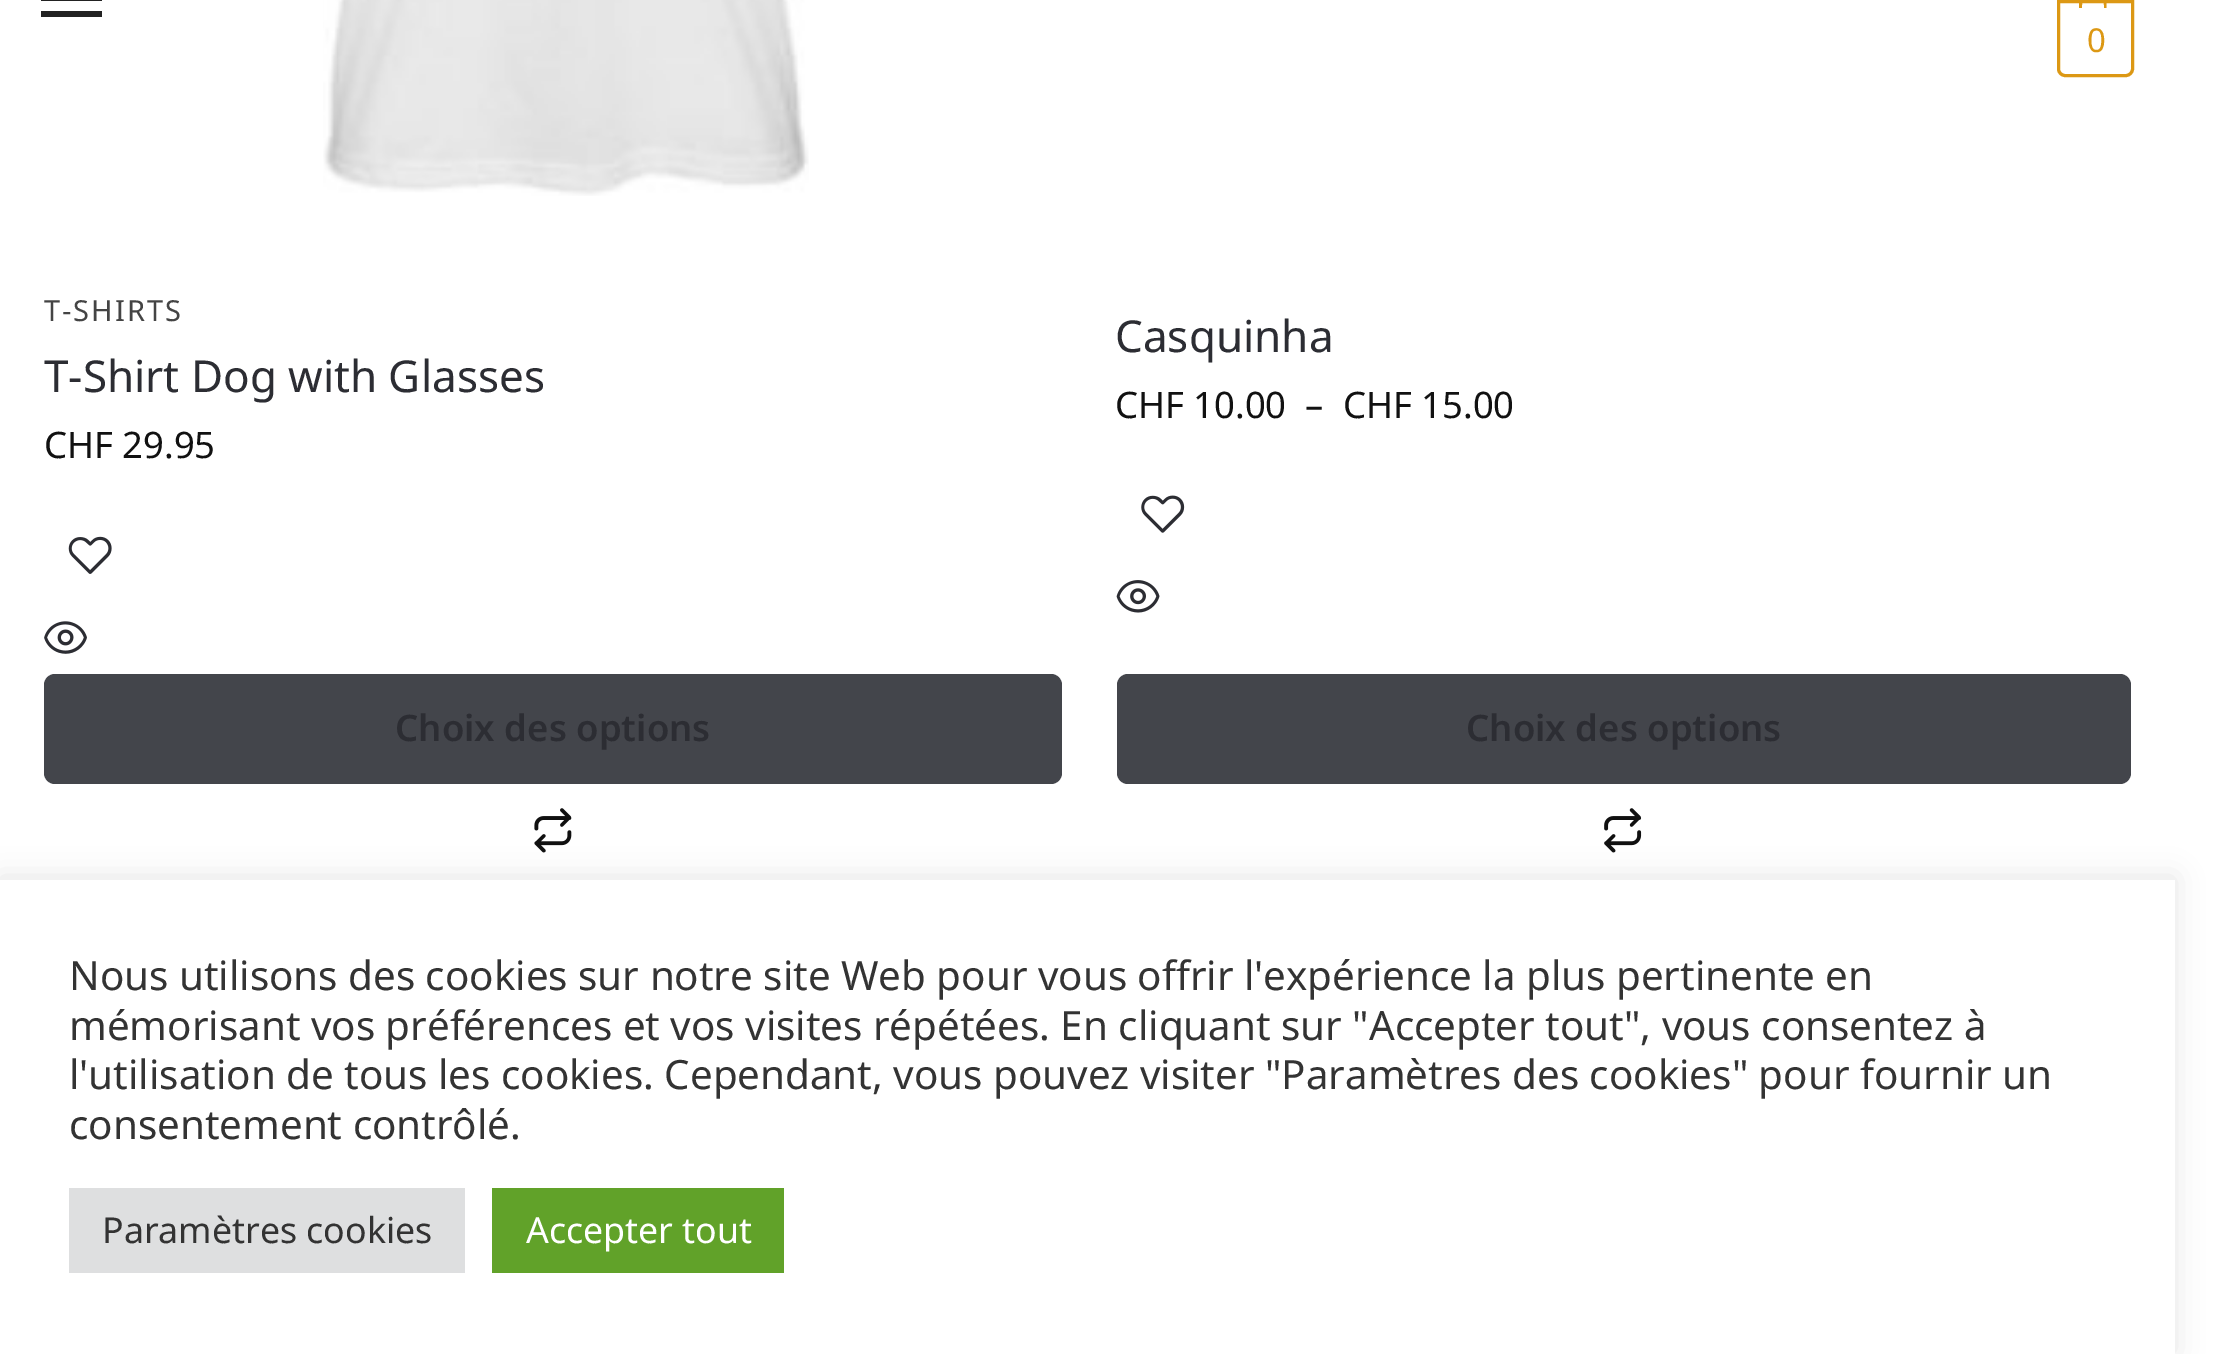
%!PS
<< /PageSize [2214 1354] /PageUsesTransparency true >> setpagedevice
/rgb { 3 { 255 div 3 1 roll } repeat setrgbcolor } def
/font { [ exch dup neg 0 0 3 -1 roll 0 0 ] selectfont } def
/alpha { dup .setfillconstantalpha .setstrokeconstantalpha } def
/roundrect { 5 dict begin { /r /h /w /y /x } { exch def } forall
  x r add y moveto x w add y 2 copy h add r arct x w add y h add x 1 index r arct
  x y h add x y r arct x y 2 copy exch w add exch r arct closepath end } def
/shadow { 12 dict begin { /a /b /q /h /w /y /x } { exch def } forall gsave /was 0 def
  9 -2 -9 { dup b mul 4 div /e exch def 1 sub .425 mul 2.718 exch exp 1 add a .99 .min exch div /now exch def
    1 1 now sub 1 was sub div sub alpha /was now def
    w h .min e 2 mul add 0 gt { x e sub y e sub w e 2 mul add h e 2 mul add
      q e add b .6 mul add w h .min 2 div e add .min 0 .max roundrect fill } if } for grestore end } def
/picture { 5 dict begin { /h /w /y /x /name } { exch def } forall
  gsave x y translate w h scale
  w h 8 [w 0 0 h 0 0] name (r) file false 3 colorimage grestore end } def
0 .pushpdf14devicefilter
0 1354 translate 1 -1 scale
4 setmiterlimit
255 255 255 rgb
0 0 2214 1354 rectfill
34 34 34 rgb
41 0 61 1 rectfill
41 11 61 6 rectfill
220 152 20 rgb
3 setlinewidth
2058.5 1.5 moveto 2132.5 1.5 lineto 2132.5 69 lineto 2132.5 72.5 2129.5 75.5 2126 75.5 curveto 2065 75.5 lineto 2061.5 75.5 2058.5 72.5 2058.5 69 curveto closepath stroke
2093 -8 moveto 2100.5 -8 2106.5 -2 2106.5 5.5 curveto 2106.5 8 lineto 2079 8 lineto 2079 5.5 lineto 2079 -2 2085 -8 2093 -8 curveto closepath 2093 -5.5 moveto 2099 -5.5 2104 -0.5 2104 5.5 curveto 2104 8 lineto 2082 8 lineto 2082 5.5 lineto 2082 -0.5 2086.5 -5.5 2093 -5.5 curveto closepath eofill
(img/1.rgb) 323 0 486 196 picture
(img/2.rgb) 68 536 44 38 picture
(img/3.rgb) 44 621 43 33 picture
67 69 75 rgb
44 674 1018 110 11 roundrect fill
(img/4.rgb) 534 808 38 45 picture
(img/5.rgb) 1141 495 44 38 picture
(img/6.rgb) 1116 580 44 33 picture
1117 674 1014 110 11 roundrect fill
(img/7.rgb) 1604 808 38 45 picture
172 171 171 rgb
0 877 2175 476 0 14 0.3 shadow
[
  [0 880 2175 474 255 255 255]
  [69 1188 396 85 222 223 224]
  [492 1188 292 85 97 162 41]
] { aload pop rgb rectfill } forall
/NotoSans-Regular 33 font
220 152 20 rgb
2087 52 moveto -2 0 (0) ashow
/NotoSans-Regular 29 font
68 68 68 rgb
44 321 moveto 2 0 (T-SHIRTS) ashow
/NotoSans-Regular 44 font
44 45 51 rgb
44 392 moveto (T-Shirt Dog with Glasses) show
/NotoSans-Regular 36.5 font
17 17 17 rgb
44 458 moveto (CHF) show
122 458 moveto (29.95) show
/NotoSans-SemiBold 36.5 font
44 45 51 rgb
395 741 moveto (Choix des options) show
/NotoSans-Regular 44 font
1115 352 moveto (Casquinha) show
/NotoSans-Regular 36.5 font
17 17 17 rgb
[
  [(CHF) 1115 418]
  [(10.00) 1193 418]
  [(–) 1305 418]
  [(CHF) 1343 418]
  [(15.00) 1421 418]
] { aload pop moveto show } forall
/NotoSans-SemiBold 36.5 font
44 45 51 rgb
1466 741 moveto (Choix des options) show
/NotoSans-Regular 40.35 font
51 51 51 rgb
[
  [(Nous utilisons des cookies sur notre site Web pour vous offrir l'expérience la plus pertinente en) 69 990]
  [(mémorisant vos préférences et vos visites répétées. En cliquant sur "Accepter tout", vous consentez à) 69 1040]
  [(l'utilisation de tous les cookies. Cependant, vous pouvez visiter "Paramètres des cookies" pour fournir un) 69 1089]
  [(consentement contrôlé.) 69 1139]
] { aload pop moveto show } forall
/NotoSans-Regular 35.75 font
102 1243 moveto (Paramètres cookies) show
255 255 255 rgb
526 1243 moveto (Accepter tout) show
.poppdf14devicefilter showpage
